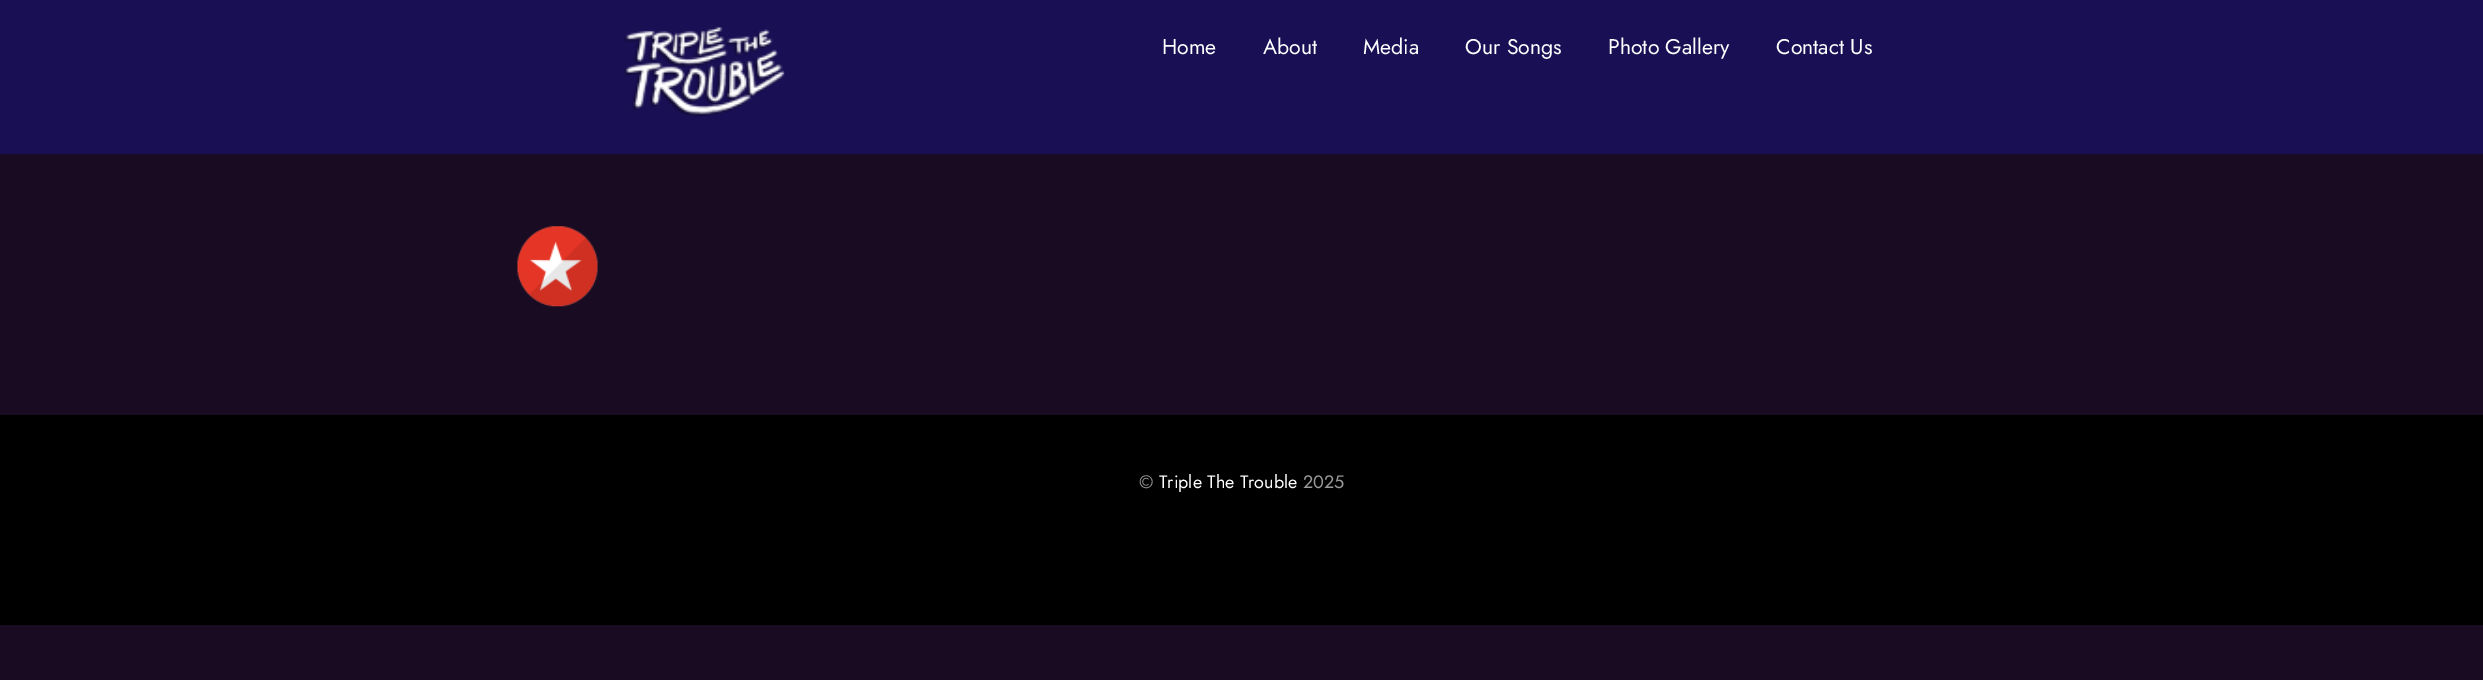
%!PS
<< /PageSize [2483 680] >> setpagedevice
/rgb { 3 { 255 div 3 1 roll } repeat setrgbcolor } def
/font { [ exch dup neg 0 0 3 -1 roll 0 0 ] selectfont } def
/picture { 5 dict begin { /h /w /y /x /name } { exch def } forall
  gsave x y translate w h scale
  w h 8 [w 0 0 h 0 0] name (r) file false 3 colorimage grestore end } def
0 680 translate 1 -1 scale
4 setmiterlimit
25 12 34 rgb
0 0 2483 680 rectfill
25 15 84 rgb
0 0 2483 154 rectfill
(img/1.rgb) 624 27 161 90 picture
(img/2.rgb) 517 226 81 81 picture
0 0 0 rgb
0 415 2483 210 rectfill
/Jost-Regular 21.25 font
255 255 255 rgb
[
  [(Home) 1162 54]
  [(About) 1263 54]
  [(Media) 1363 54]
  [(Our Songs) 1465 54]
  [(Photo Gallery) 1608 54]
  [(Contact Us) 1776 54]
] { aload pop moveto show } forall
/Jost-Regular 18 font
153 153 153 rgb
1139 488 moveto (©) show
255 255 255 rgb
1159 488 moveto (Triple The Trouble) show
153 153 153 rgb
1303 488 moveto (2025) show
showpage
